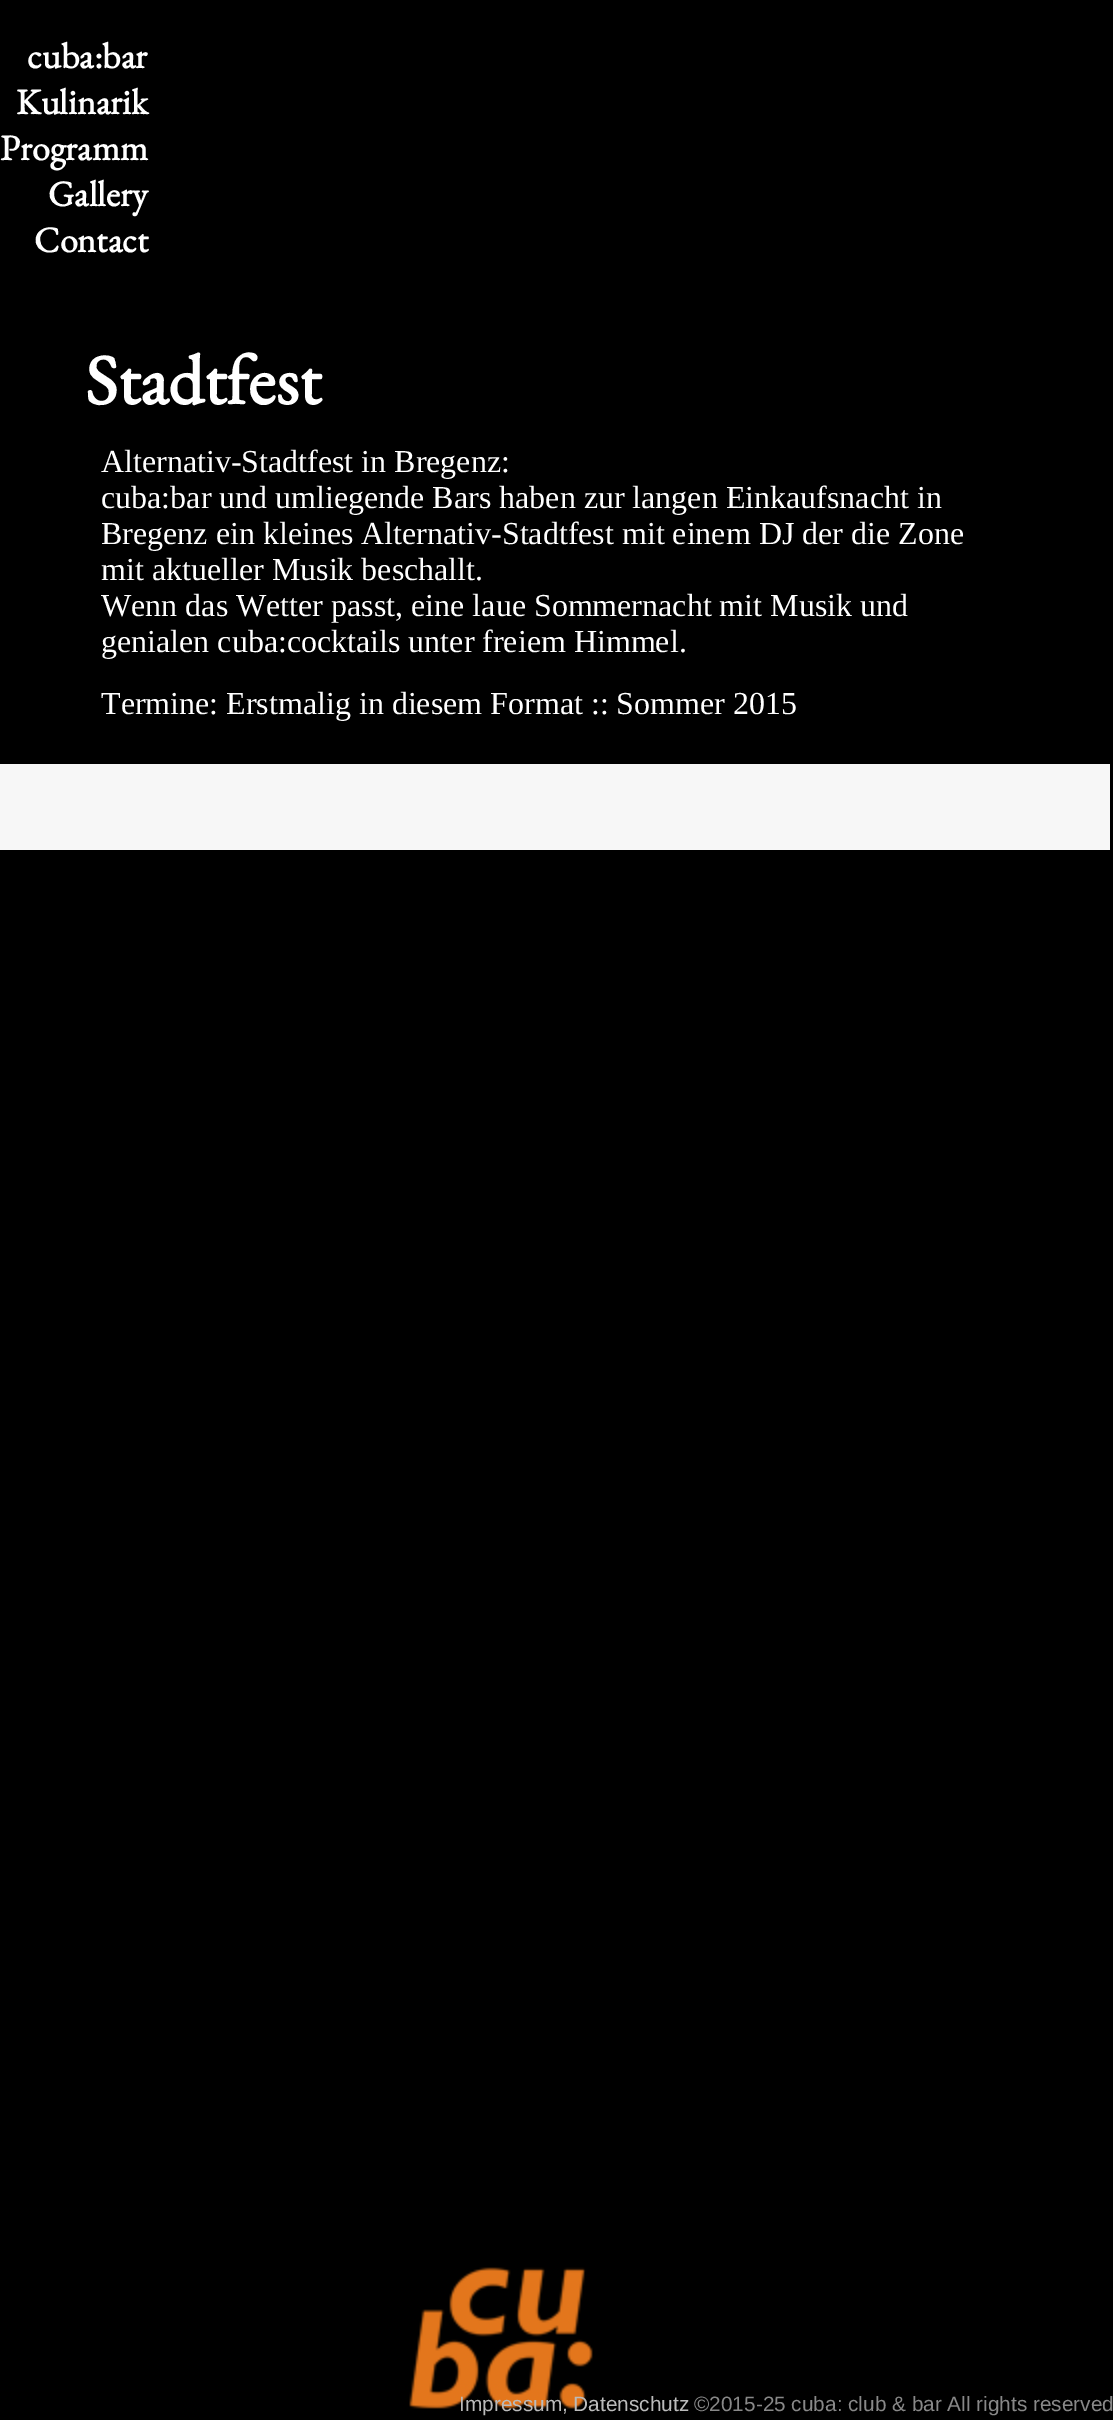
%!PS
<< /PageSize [1113 2420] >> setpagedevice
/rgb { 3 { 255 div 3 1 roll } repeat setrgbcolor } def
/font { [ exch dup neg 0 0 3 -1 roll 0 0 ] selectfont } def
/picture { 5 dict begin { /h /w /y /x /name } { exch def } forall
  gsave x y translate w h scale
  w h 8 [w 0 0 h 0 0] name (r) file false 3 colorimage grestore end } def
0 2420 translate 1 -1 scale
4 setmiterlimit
0 0 0 rgb
0 0 1113 2420 rectfill
247 247 247 rgb
0 764 1110 86 rectfill
(img/1.rgb) 409 2267 184 142 picture
/EBGaramond-Bold 36 font
255 255 255 rgb
[
  [(cuba:bar) 27 68]
  [(Kulinarik) 16 114]
  [(Programm) 0 160]
  [(Gallery) 48 206]
  [(Contact) 34 252]
] { aload pop moveto show } forall
/EBGaramond-Bold 70.5 font
85 404 moveto (Stadtfest) show
/LiberationSerif-Regular 32 font
[
  [(Alternativ-Stadtfest in Bregenz:) 101 472]
  [(cuba:bar und umliegende Bars haben zur langen Einkaufsnacht in) 101 508]
  [(Bregenz ein kleines Alternativ-Stadtfest mit einem DJ der die Zone) 101 544]
  [(mit aktueller Musik beschallt.) 101 580]
  [(Wenn das Wetter passt, eine laue Sommernacht mit Musik und) 101 616]
  [(genialen cuba:cocktails unter freiem Himmel.) 101 652]
  [(Termine: Erstmalig in diesem Format :: Sommer 2015) 101 714]
] { aload pop moveto show } forall
/LiberationSans-Regular 20.8 font
187 187 187 rgb
459 2411 moveto (Impressum, Datenschutz) show
136 136 136 rgb
694 2411 moveto (©2015-25 cuba: club & bar All rights reserved) show
showpage
